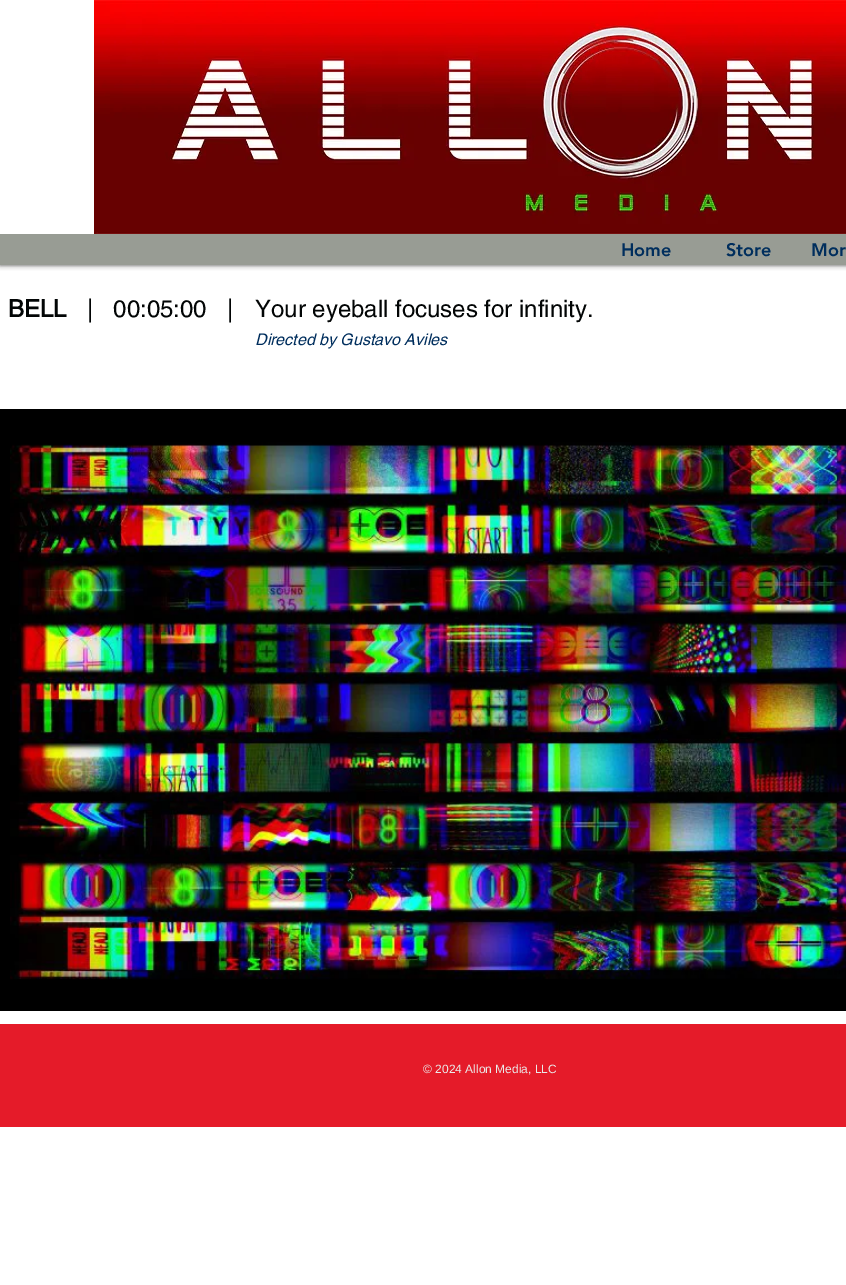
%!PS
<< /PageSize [846 1285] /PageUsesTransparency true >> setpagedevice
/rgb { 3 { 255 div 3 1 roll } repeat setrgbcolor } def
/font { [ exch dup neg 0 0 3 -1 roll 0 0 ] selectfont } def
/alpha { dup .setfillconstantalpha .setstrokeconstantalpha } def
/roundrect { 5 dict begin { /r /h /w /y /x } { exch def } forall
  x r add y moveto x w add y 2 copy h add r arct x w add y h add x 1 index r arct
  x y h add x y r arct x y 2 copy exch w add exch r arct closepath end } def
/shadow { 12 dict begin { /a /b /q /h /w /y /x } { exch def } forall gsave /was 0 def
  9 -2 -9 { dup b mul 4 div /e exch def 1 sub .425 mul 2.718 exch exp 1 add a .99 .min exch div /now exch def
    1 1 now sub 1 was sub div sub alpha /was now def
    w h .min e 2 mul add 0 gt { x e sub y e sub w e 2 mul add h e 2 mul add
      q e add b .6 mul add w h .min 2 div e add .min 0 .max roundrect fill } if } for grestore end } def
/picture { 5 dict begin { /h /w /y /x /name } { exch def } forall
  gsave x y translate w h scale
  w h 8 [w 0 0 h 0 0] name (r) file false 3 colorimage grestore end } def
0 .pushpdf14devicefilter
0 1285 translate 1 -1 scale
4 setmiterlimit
255 255 255 rgb
0 0 846 1285 rectfill
0 0 0 rgb
0 0 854 265 0 2.5 0.7 shadow
152 156 148 rgb
0 234 846 31 rectfill
255 255 255 rgb
0 0 94 234 rectfill
(img/1.rgb) 94 0 752 234 picture
0 0 0 rgb
0 409 846 602 rectfill
(img/2.rgb) 10 442 836 538 picture
229 27 41 rgb
0 1024 846 103 rectfill
/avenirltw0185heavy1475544-Black 18 font
0 46 93 rgb
[
  [(Home) 621 256]
  [(Store) 726 256]
  [(Mor) 811 256]
] { aload pop moveto show } forall
/helvetica-Bold 24 font
2 5 5 rgb
8 317 moveto (BELL) show
/helvetica-Regular 24 font
87 317 moveto (|   00:05:00   |) show
255 317 moveto (Your eyeball focuses for infinity.) show
/helvetica-Italic 16 font
0 46 93 rgb
255 345 moveto (Directed by Gustavo Aviles) show
/LiberationSans-Regular 12 font
234 234 233 rgb
423 1073 moveto (© 2024 Allon Media, LLC) show
.poppdf14devicefilter showpage
